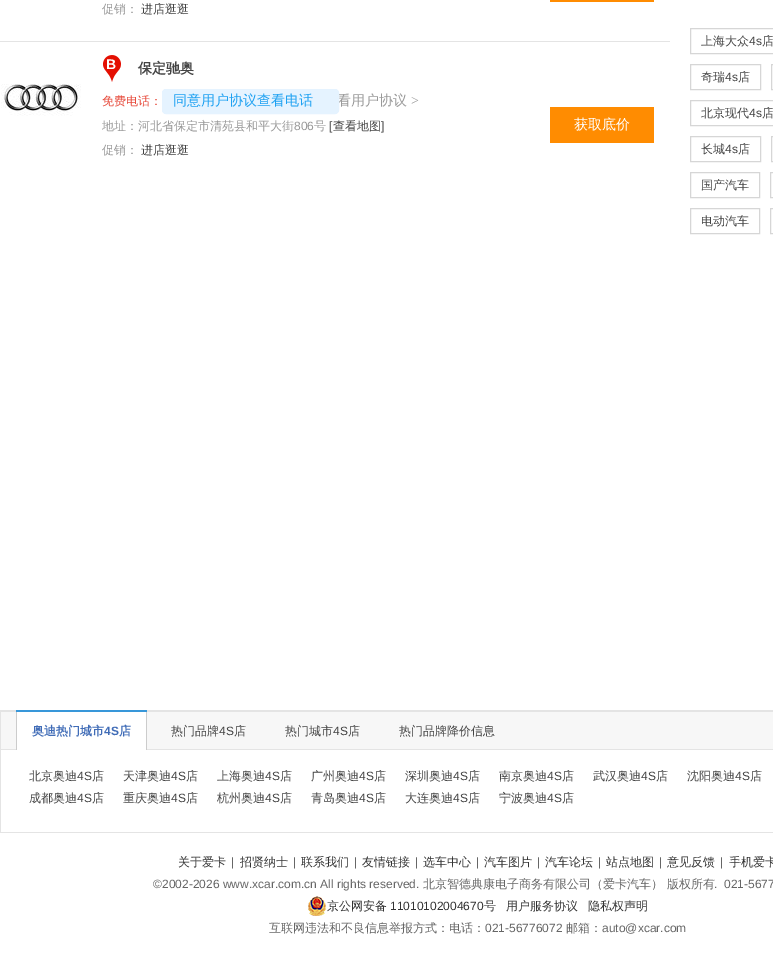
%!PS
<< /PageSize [773 953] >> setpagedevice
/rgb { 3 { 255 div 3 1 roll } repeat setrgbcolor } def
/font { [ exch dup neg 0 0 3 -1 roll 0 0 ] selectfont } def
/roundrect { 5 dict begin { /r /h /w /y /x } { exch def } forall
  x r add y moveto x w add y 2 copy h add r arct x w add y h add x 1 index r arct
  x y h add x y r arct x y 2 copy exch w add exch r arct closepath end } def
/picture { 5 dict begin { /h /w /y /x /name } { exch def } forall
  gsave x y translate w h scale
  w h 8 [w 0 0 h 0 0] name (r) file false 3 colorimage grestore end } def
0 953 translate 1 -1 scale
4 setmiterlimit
255 255 255 rgb
0 0 773 953 rectfill
255 140 1 rgb
550 0 104 2 rectfill
228 228 228 rgb
0 41 670 1 rectfill
(img/1.rgb) 1 84 80 32 picture
(img/2.rgb) 103 55 18 27 picture
255 140 1 rgb
550 107 104 36 rectfill
214 214 214 rgb
690.5 28.5 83 25 rectstroke
690.5 64.5 70 25 rectstroke
771.5 64.5 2 25 rectstroke
690.5 100.5 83 25 rectstroke
690.5 136.5 70 25 rectstroke
771.5 136.5 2 25 rectstroke
690.5 172.5 69 25 rectstroke
770.5 172.5 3 25 rectstroke
690.5 208.5 69 25 rectstroke
770.5 208.5 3 25 rectstroke
[
  [1 712 772 37 247 247 247]
  [0 710 773 2 228 228 228]
  [0 749 773 1 228 228 228]
  [0 710 1 40 228 228 228]
  [17 712 129 38 255 255 255]
  [16 710 131 2 56 151 217]
  [146 712 1 38 204 204 204]
  [16 712 1 38 204 204 204]
  [0 832 773 1 228 228 228]
  [0 750 1 83 228 228 228]
] { aload pop rgb rectfill } forall
(img/3.rgb) 308 896 18 20 picture
/WenQuanYiZenHei-Medium 12 font
153 153 153 rgb
102 13 moveto (促销：) show
68 68 68 rgb
141 13 moveto (进店逛逛) show
/LiberationSans-Bold 14 font
255 255 255 rgb
106 69 moveto (B) show
/WenQuanYiZenHei-Bold 14 font
68 68 68 rgb
138 73 moveto (保定驰奥) show
/WenQuanYiZenHei-Medium 12 font
231 75 60 rgb
102 105 moveto (免费电话：) show
/WenQuanYiZenHei-Medium 14 font
153 153 153 rgb
337 105 moveto (看用户协议) show
229 243 255 rgb
162.5 89.5 176 24 3.5 roundrect gsave fill grestore
stroke
29 161 242 rgb
173 105 moveto (同意用户协议查看电话) show
/LiberationSerif-Regular 14 font
153 153 153 rgb
411 105 moveto (>) show
/WenQuanYiZenHei-Medium 12 font
102 130 moveto (地址：河北省保定市清苑县和平大街) show
/LiberationSans-Regular 12 font
294 130 moveto (806) show
/WenQuanYiZenHei-Medium 12 font
314 130 moveto (号) show
/LiberationSans-Regular 12 font
68 68 68 rgb
329 130 moveto ([) show
/WenQuanYiZenHei-Medium 12 font
333 130 moveto (查看地图) show
/LiberationSans-Regular 12 font
381 130 moveto (]) show
/WenQuanYiZenHei-Medium 12 font
153 153 153 rgb
102 154 moveto (促销：) show
68 68 68 rgb
141 154 moveto (进店逛逛) show
/WenQuanYiZenHei-Medium 14 font
255 255 255 rgb
574 129 moveto (获取底价) show
/WenQuanYiZenHei-Medium 12 font
68 68 68 rgb
701 45 moveto (上海大众) show
/LiberationSans-Regular 12 font
749 45 moveto (4s) show
/WenQuanYiZenHei-Medium 12 font
762 45 moveto (店) show
701 81 moveto (奇瑞) show
/LiberationSans-Regular 12 font
725 81 moveto (4s) show
/WenQuanYiZenHei-Medium 12 font
738 81 moveto (店) show
701 117 moveto (北京现代) show
/LiberationSans-Regular 12 font
749 117 moveto (4s) show
/WenQuanYiZenHei-Medium 12 font
762 117 moveto (店) show
701 153 moveto (长城) show
/LiberationSans-Regular 12 font
725 153 moveto (4s) show
/WenQuanYiZenHei-Medium 12 font
[
  [(店) 738 153]
  [(国产汽车) 701 189]
  [(电动汽车) 701 225]
] { aload pop moveto show } forall
/WenQuanYiZenHei-Bold 12 font
64 108 183 rgb
32 735 moveto (奥迪热门城市) show
/LiberationSans-Bold 12 font
104 735 moveto (4S) show
/WenQuanYiZenHei-Bold 12 font
119 735 moveto (店) show
/WenQuanYiZenHei-Medium 12 font
68 68 68 rgb
171 735 moveto (热门品牌) show
/LiberationSans-Regular 12 font
219 735 moveto (4S) show
/WenQuanYiZenHei-Medium 12 font
234 735 moveto (店) show
285 735 moveto (热门城市) show
/LiberationSans-Regular 12 font
333 735 moveto (4S) show
/WenQuanYiZenHei-Medium 12 font
[
  [(店) 348 735]
  [(热门品牌降价信息) 399 735]
  [(北京奥迪) 29 780]
] { aload pop moveto show } forall
/LiberationSans-Regular 12 font
77 780 moveto (4S) show
/WenQuanYiZenHei-Medium 12 font
92 780 moveto (店) show
123 780 moveto (天津奥迪) show
/LiberationSans-Regular 12 font
171 780 moveto (4S) show
/WenQuanYiZenHei-Medium 12 font
186 780 moveto (店) show
217 780 moveto (上海奥迪) show
/LiberationSans-Regular 12 font
265 780 moveto (4S) show
/WenQuanYiZenHei-Medium 12 font
280 780 moveto (店) show
311 780 moveto (广州奥迪) show
/LiberationSans-Regular 12 font
359 780 moveto (4S) show
/WenQuanYiZenHei-Medium 12 font
374 780 moveto (店) show
405 780 moveto (深圳奥迪) show
/LiberationSans-Regular 12 font
453 780 moveto (4S) show
/WenQuanYiZenHei-Medium 12 font
468 780 moveto (店) show
499 780 moveto (南京奥迪) show
/LiberationSans-Regular 12 font
547 780 moveto (4S) show
/WenQuanYiZenHei-Medium 12 font
562 780 moveto (店) show
593 780 moveto (武汉奥迪) show
/LiberationSans-Regular 12 font
641 780 moveto (4S) show
/WenQuanYiZenHei-Medium 12 font
656 780 moveto (店) show
687 780 moveto (沈阳奥迪) show
/LiberationSans-Regular 12 font
735 780 moveto (4S) show
/WenQuanYiZenHei-Medium 12 font
750 780 moveto (店) show
29 802 moveto (成都奥迪) show
/LiberationSans-Regular 12 font
77 802 moveto (4S) show
/WenQuanYiZenHei-Medium 12 font
92 802 moveto (店) show
123 802 moveto (重庆奥迪) show
/LiberationSans-Regular 12 font
171 802 moveto (4S) show
/WenQuanYiZenHei-Medium 12 font
186 802 moveto (店) show
217 802 moveto (杭州奥迪) show
/LiberationSans-Regular 12 font
265 802 moveto (4S) show
/WenQuanYiZenHei-Medium 12 font
280 802 moveto (店) show
311 802 moveto (青岛奥迪) show
/LiberationSans-Regular 12 font
359 802 moveto (4S) show
/WenQuanYiZenHei-Medium 12 font
374 802 moveto (店) show
405 802 moveto (大连奥迪) show
/LiberationSans-Regular 12 font
453 802 moveto (4S) show
/WenQuanYiZenHei-Medium 12 font
468 802 moveto (店) show
499 802 moveto (宁波奥迪) show
/LiberationSans-Regular 12 font
547 802 moveto (4S) show
/WenQuanYiZenHei-Medium 12 font
562 802 moveto (店) show
51 51 51 rgb
178 866 moveto (关于爱卡) show
/LiberationSans-Regular 12 font
102 102 102 rgb
231 866 moveto (|) show
/WenQuanYiZenHei-Medium 12 font
51 51 51 rgb
240 866 moveto (招贤纳士) show
/LiberationSans-Regular 12 font
102 102 102 rgb
293 866 moveto (|) show
/WenQuanYiZenHei-Medium 12 font
51 51 51 rgb
301 866 moveto (联系我们) show
/LiberationSans-Regular 12 font
102 102 102 rgb
354 866 moveto (|) show
/WenQuanYiZenHei-Medium 12 font
51 51 51 rgb
362 866 moveto (友情链接) show
/LiberationSans-Regular 12 font
102 102 102 rgb
415 866 moveto (|) show
/WenQuanYiZenHei-Medium 12 font
51 51 51 rgb
423 866 moveto (选车中心) show
/LiberationSans-Regular 12 font
102 102 102 rgb
476 866 moveto (|) show
/WenQuanYiZenHei-Medium 12 font
51 51 51 rgb
484 866 moveto (汽车图片) show
/LiberationSans-Regular 12 font
102 102 102 rgb
537 866 moveto (|) show
/WenQuanYiZenHei-Medium 12 font
51 51 51 rgb
545 866 moveto (汽车论坛) show
/LiberationSans-Regular 12 font
102 102 102 rgb
598 866 moveto (|) show
/WenQuanYiZenHei-Medium 12 font
51 51 51 rgb
606 866 moveto (站点地图) show
/LiberationSans-Regular 12 font
102 102 102 rgb
659 866 moveto (|) show
/WenQuanYiZenHei-Medium 12 font
51 51 51 rgb
667 866 moveto (意见反馈) show
/LiberationSans-Regular 12 font
102 102 102 rgb
720 866 moveto (|) show
/WenQuanYiZenHei-Medium 12 font
51 51 51 rgb
729 866 moveto (手机爱卡) show
/LiberationSans-Regular 12 font
102 102 102 rgb
153 888 moveto (©2002-2026 www.xcar.com.cn All rights reserved.) show
/WenQuanYiZenHei-Medium 12 font
423 888 moveto (北京智德典康电子商务有限公司（爱卡汽车） 版权所有) show
/LiberationSans-Regular 12 font
714 888 moveto (.) show
724 888 moveto (021-5677) show
/WenQuanYiZenHei-Medium 12 font
51 51 51 rgb
327 910 moveto (京公网安备) show
/LiberationSans-Regular 12 font
390 910 moveto (11010102004670) show
/WenQuanYiZenHei-Medium 12 font
[
  [(号) 484 910]
  [(用户服务协议) 506 910]
  [(隐私权声明) 588 910]
] { aload pop moveto show } forall
102 102 102 rgb
269 932 moveto (互联网违法和不良信息举报方式：电话：) show
/LiberationSans-Regular 12 font
485 932 moveto (021-56776072) show
/WenQuanYiZenHei-Medium 12 font
566 932 moveto (邮箱：) show
/LiberationSans-Regular 12 font
602 932 moveto (auto@xcar.com) show
showpage
